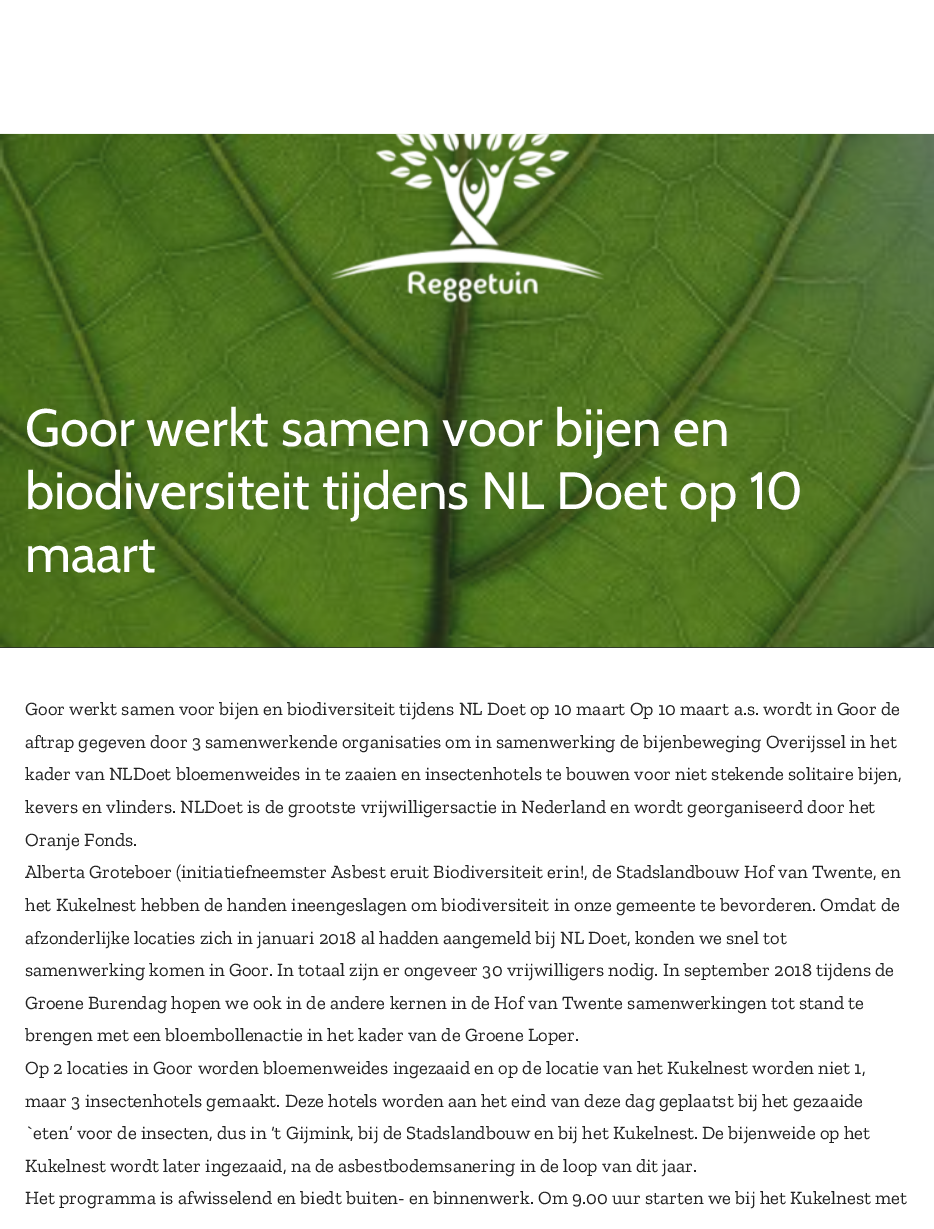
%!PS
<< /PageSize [934 1229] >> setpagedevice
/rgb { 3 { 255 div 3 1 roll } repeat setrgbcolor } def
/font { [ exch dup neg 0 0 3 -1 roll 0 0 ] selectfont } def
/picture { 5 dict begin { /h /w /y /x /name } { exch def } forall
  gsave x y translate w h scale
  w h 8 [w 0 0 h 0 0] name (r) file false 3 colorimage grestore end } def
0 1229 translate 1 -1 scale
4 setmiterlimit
255 255 255 rgb
0 0 934 1229 rectfill
40 41 45 rgb
0 647 934 1 rectfill
(img/2.rgb) 0 133 934 515 picture
(img/1.rgb) 330 133 275 170 picture
/Cabin-Regular 52.5 font
255 255 255 rgb
[
  [(Goor werkt samen voor bijen en) 25 446]
  [(biodiversiteit tijdens NL Doet op 10) 25 509]
  [(maart) 25 572]
] { aload pop moveto show } forall
/ZillaSlab-Regular 18.75 font
34 34 34 rgb
[
  [(Goor werkt samen voor bijen en biodiversiteit tijdens NL Doet op 10 maart Op 10 maart a.s. wordt in Goor de) 25 715]
  [(aftrap gegeven door 3 samenwerkende organisaties om in samenwerking de bijenbeweging Overijssel in het) 25 748]
  [(kader van NLDoet bloemenweides in te zaaien en insectenhotels te bouwen voor niet stekende solitaire bijen,) 25 780]
  [(kevers en vlinders. NLDoet is de grootste vrijwilligersactie in Nederland en wordt georganiseerd door het) 25 813]
  [(Oranje Fonds.) 25 846]
  [(Alberta Groteboer \(initiatiefneemster Asbest eruit Biodiversiteit erin!, de Stadslandbouw Hof van Twente, en) 25 878]
  [(het Kukelnest hebben de handen ineengeslagen om biodiversiteit in onze gemeente te bevorderen. Omdat de) 25 911]
  [(afzonderlijke locaties zich in januari 2018 al hadden aangemeld bij NL Doet, konden we snel tot) 25 944]
  [(samenwerking komen in Goor. In totaal zijn er ongeveer 30 vrijwilligers nodig. In september 2018 tijdens de) 25 976]
  [(Groene Burendag hopen we ook in de andere kernen in de Hof van Twente samenwerkingen tot stand te) 25 1009]
  [(brengen met een bloembollenactie in het kader van de Groene Loper.) 25 1041]
  [(Op 2 locaties in Goor worden bloemenweides ingezaaid en op de locatie van het Kukelnest worden niet 1,) 25 1074]
  [(maar 3 insectenhotels gemaakt. Deze hotels worden aan het eind van deze dag geplaatst bij het gezaaide) 25 1107]
  [(`eten’ voor de insecten, dus in ‘t Gijmink, bij de Stadslandbouw en bij het Kukelnest. De bijenweide op het) 25 1139]
  [(Kukelnest wordt later ingezaaid, na de asbestbodemsanering in de loop van dit jaar.) 25 1172]
  [(Het programma is afwisselend en biedt buiten- en binnenwerk. Om 9.00 uur starten we bij het Kukelnest met) 25 1204]
] { aload pop moveto show } forall
showpage
